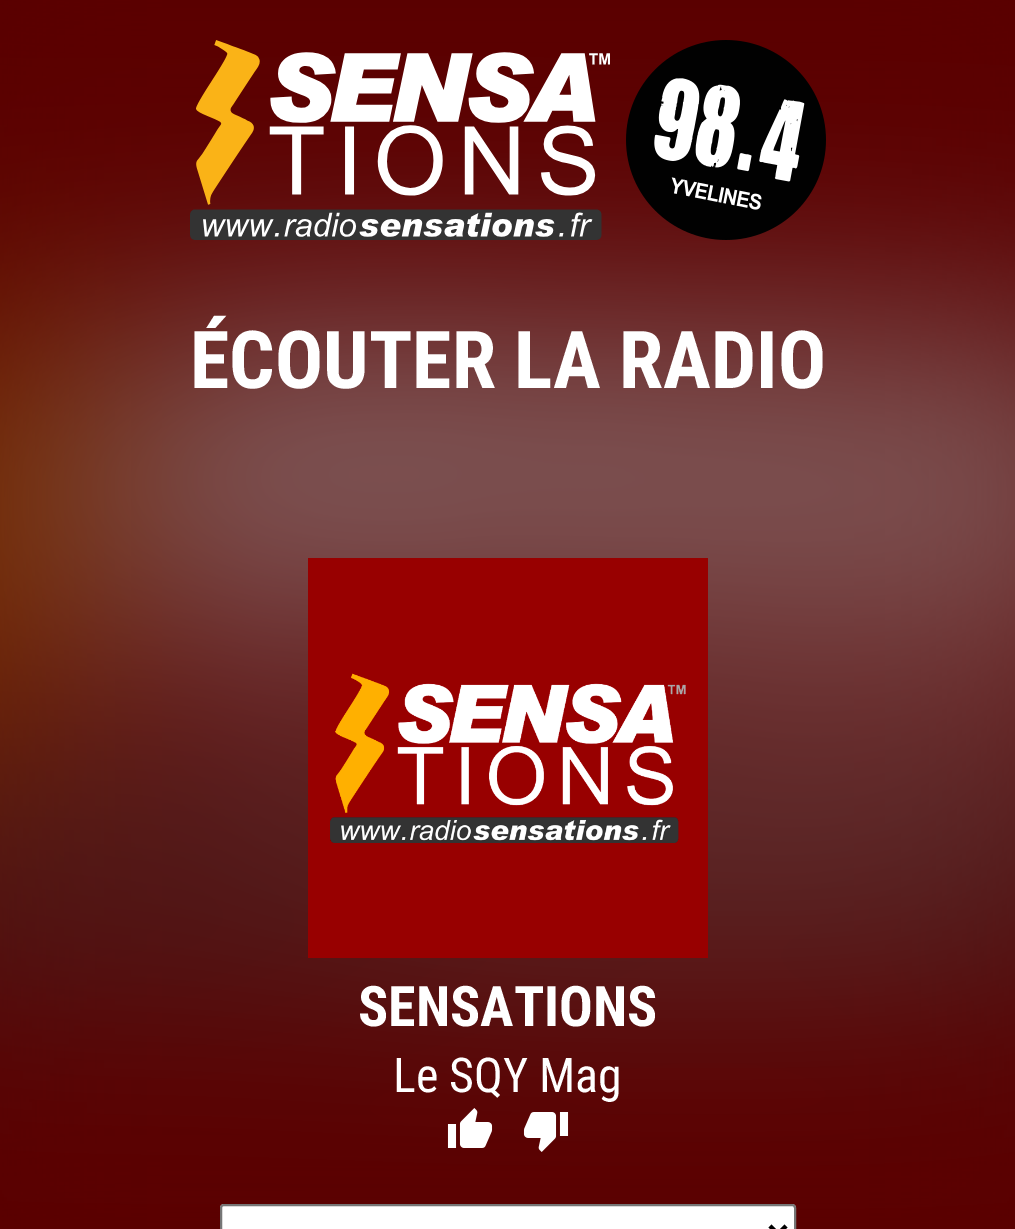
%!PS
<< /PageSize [1015 1229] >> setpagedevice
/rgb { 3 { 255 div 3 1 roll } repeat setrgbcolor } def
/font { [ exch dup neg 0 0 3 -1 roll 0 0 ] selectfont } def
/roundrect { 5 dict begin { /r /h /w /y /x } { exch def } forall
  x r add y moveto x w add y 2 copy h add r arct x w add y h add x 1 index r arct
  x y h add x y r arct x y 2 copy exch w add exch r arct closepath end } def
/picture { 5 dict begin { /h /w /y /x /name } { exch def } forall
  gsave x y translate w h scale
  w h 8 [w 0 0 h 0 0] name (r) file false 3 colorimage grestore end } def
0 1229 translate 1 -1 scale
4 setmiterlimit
255 255 255 rgb
0 0 1015 1229 rectfill
(img/1.rgb) 0 0 1015 1229 picture
(img/2.rgb) 190 40 420 200 picture
(img/3.rgb) 626 40 200 200 picture
(img/4.rgb) 308 558 400 400 picture
(img/5.rgb) 447 1108 46 40 picture
(img/6.rgb) 523 1112 46 40 picture
224 1204 moveto 792 1204 lineto 794 1204 796 1206 796 1208 curveto 796 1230 lineto 220 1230 lineto 220 1208 lineto 220 1206 222 1204 224 1204 curveto closepath fill
118 118 118 rgb
2 setlinewidth
221 1205 574 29 3 roundrect stroke
0 0 0 rgb
4 setlinewidth
770 1226 moveto 778 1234 lineto 786 1226 lineto stroke
/RobotoCondensed-Bold 80 font
255 255 255 rgb
190 388 moveto (ÉCOUTER LA RADIO) show
/RobotoCondensed-Bold 56 font
358 1026 moveto (SENSATIONS) show
/RobotoCondensed-Regular 48 font
393 1092 moveto (Le SQY Mag) show
showpage
